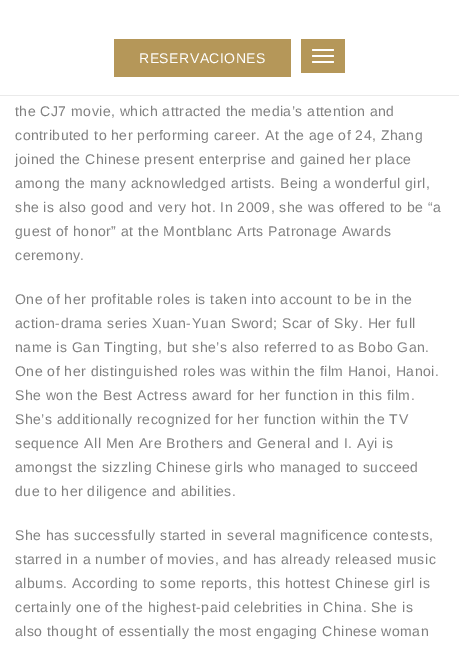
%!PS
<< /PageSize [459 645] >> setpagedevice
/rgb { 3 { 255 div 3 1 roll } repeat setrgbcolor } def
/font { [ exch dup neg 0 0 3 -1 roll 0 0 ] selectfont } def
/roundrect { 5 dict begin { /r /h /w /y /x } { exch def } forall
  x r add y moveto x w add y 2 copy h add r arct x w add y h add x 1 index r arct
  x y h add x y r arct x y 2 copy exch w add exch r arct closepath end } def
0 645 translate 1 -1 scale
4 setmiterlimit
255 255 255 rgb
0 0 459 645 rectfill
[
  [0 95 459 1 234 234 234]
  [114 39 177 38 181 151 89]
  [301 39 44 34 181 151 89]
] { aload pop rgb rectfill } forall
255 255 255 rgb
312 49 22 2 1 roundrect fill
312 55 22 2 1 roundrect fill
312 61 22 2 1 roundrect fill
/LiberationSans-Regular 14 font
139 63 moveto 0.5 0 (RESERVACIONES) ashow
128 128 128 rgb
15 116 moveto 0.5 0 (the CJ7 movie, which attracted the media’s attention and) ashow
15 140 moveto 0.5 0 (contributed to her performing career. At the age of 24, Zhang) ashow
15 164 moveto 0.5 0 (joined the Chinese present enterprise and gained her place) ashow
15 188 moveto 0.5 0 (among the many acknowledged artists. Being a wonderful girl,) ashow
15 212 moveto 0.5 0 (she is also good and very hot. In 2009, she was offered to be “a) ashow
15 236 moveto 0.5 0 (guest of honor” at the Montblanc Arts Patronage Awards) ashow
15 260 moveto 0.5 0 (ceremony.) ashow
15 304 moveto 0.5 0 (One of her profitable roles is taken into account to be in the) ashow
15 328 moveto 0.5 0 (action-drama series Xuan-Yuan Sword; Scar of Sky. Her full) ashow
15 352 moveto 0.5 0 (name is Gan Tingting, but she’s also referred to as Bobo Gan.) ashow
15 376 moveto 0.5 0 (One of her distinguished roles was within the film Hanoi, Hanoi.) ashow
15 400 moveto 0.5 0 (She won the Best Actress award for her function in this film.) ashow
15 424 moveto 0.5 0 (She’s additionally recognized for her function within the TV) ashow
15 448 moveto 0.5 0 (sequence All Men Are Brothers and General and I. Ayi is) ashow
15 472 moveto 0.5 0 (amongst the sizzling Chinese girls who managed to succeed) ashow
15 496 moveto 0.5 0 (due to her diligence and abilities.) ashow
15 540 moveto 0.5 0 (She has successfully started in several magnificence contests,) ashow
15 564 moveto 0.5 0 (starred in a number of movies, and has already released music) ashow
15 588 moveto 0.5 0 (albums. According to some reports, this hottest Chinese girl is) ashow
15 612 moveto 0.5 0 (certainly one of the highest-paid celebrities in China. She is) ashow
15 636 moveto 0.5 0 (also thought of essentially the most engaging Chinese woman) ashow
showpage
